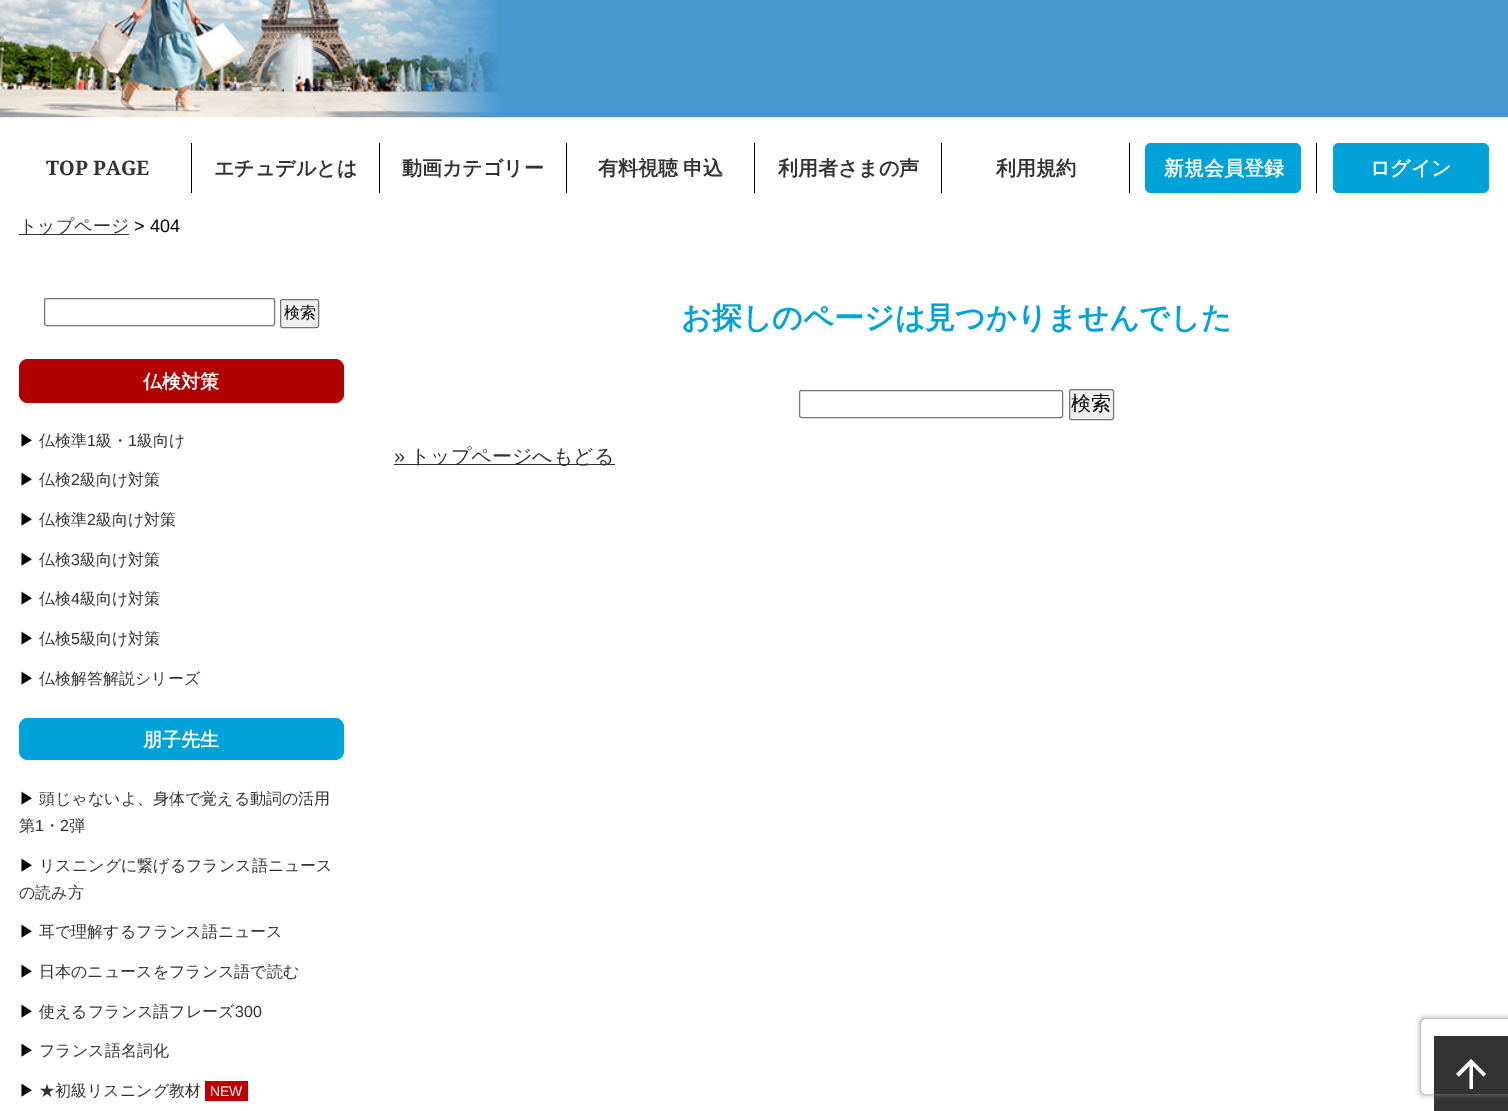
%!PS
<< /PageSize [1508 1111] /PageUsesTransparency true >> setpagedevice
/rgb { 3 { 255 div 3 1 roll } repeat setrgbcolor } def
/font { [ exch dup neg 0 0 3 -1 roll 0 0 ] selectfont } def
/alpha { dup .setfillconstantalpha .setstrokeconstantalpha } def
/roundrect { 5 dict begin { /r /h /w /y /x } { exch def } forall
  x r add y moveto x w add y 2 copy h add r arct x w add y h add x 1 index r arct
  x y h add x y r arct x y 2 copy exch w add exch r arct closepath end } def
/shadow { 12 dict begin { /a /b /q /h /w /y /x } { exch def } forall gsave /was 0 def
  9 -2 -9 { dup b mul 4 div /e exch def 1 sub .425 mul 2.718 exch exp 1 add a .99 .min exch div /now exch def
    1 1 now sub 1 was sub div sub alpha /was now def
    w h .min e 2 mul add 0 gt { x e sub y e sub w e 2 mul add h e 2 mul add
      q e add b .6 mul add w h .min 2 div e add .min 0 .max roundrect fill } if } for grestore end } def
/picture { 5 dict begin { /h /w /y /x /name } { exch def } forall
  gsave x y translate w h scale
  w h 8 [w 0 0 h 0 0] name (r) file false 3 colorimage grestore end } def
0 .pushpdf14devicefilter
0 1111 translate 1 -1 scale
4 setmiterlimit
255 255 255 rgb
0 0 1508 1111 rectfill
(img/1.rgb) 0 0 1508 118 picture
[
  [191 143 1 50 0 0 0]
  [379 143 1 50 0 0 0]
  [566 143 1 50 0 0 0]
  [754 143 1 50 0 0 0]
  [941 143 1 50 0 0 0]
  [1129 143 1 50 0 0 0]
  [1316 143 1 50 0 0 0]
] { aload pop rgb rectfill } forall
0 163 217 rgb
1145 143 156 50 6 roundrect fill
1333 143 156 50 6 roundrect fill
51 51 51 rgb
19 234 110 1 rectfill
118 118 118 rgb
44.5 298.5 230 27 2 roundrect stroke
239 239 239 rgb
280.5 299.5 38 28 2 roundrect gsave fill grestore
118 118 118 rgb
stroke
178 0 0 rgb
19 359 325 44 9 roundrect fill
0 163 217 rgb
19 718 325 42 9 roundrect fill
191 0 0 rgb
205 1081 43 20 rectfill
118 118 118 rgb
799.5 390.5 263 27 2 roundrect stroke
239 239 239 rgb
1069.5 389.5 44 30 2 roundrect gsave fill grestore
118 118 118 rgb
stroke
51 51 51 rgb
394 464 221 1 rectfill
1434 1036 74 75 rectfill
255 255 255 rgb
1456 1074 moveto 1459 1076.5 lineto 1469.5 1066 lineto 1469.5 1089 lineto 1473 1089 lineto 1473 1066 lineto 1483.5 1076.5 lineto 1486 1074 lineto 1471 1059 lineto closepath fill
gsave
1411 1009 moveto 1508 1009 lineto 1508 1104 lineto 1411 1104 lineto closepath 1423.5 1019 moveto 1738.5 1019 lineto 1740 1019 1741 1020 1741 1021.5 curveto 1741 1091.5 lineto 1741 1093 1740 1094 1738.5 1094 curveto 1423.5 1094 lineto 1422 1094 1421 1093 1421 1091.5 curveto 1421 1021.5 lineto 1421 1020 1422 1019 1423.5 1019 curveto closepath eoclip newpath
128 128 128 rgb
1421 1019 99 75 2.5 3 1 shadow
grestore
/NotoSerif-Bold 20 font
51 51 51 rgb
46 175 moveto (TOP PAGE) show
/WenQuanYiZenHei-Bold 20 font
214 175 moveto (エチュデルとは) show
402 175 moveto (動画カテゴリー) show
598 175 moveto -1 0 32 (有料視聴 申込) widthshow
778 175 moveto (利用者さまの声) show
996 175 moveto (利用規約) show
255 255 255 rgb
1164 175 moveto (新規会員登録) show
1370 175 moveto (ログイン) show
/WenQuanYiZenHei-Medium 18 font
51 51 51 rgb
19 232 moveto (トップページ) show
/LiberationSans-Regular 18 font
0 0 0 rgb
134 232 moveto (> 404) show
/WenQuanYiZenHei-Medium 16 font
284 318 moveto (検索) show
/WenQuanYiZenHei-Bold 19 font
255 255 255 rgb
143 388 moveto (仏検対策) show
/WenQuanYiZenHei-Medium 16 font
0 0 0 rgb
19 446 moveto (▶) show
51 51 51 rgb
39 446 moveto (仏検準) show
/LiberationSans-Regular 16 font
87 446 moveto (1) show
/WenQuanYiZenHei-Medium 16 font
96 446 moveto (級・) show
/LiberationSans-Regular 16 font
128 446 moveto (1) show
/WenQuanYiZenHei-Medium 16 font
137 446 moveto (級向け) show
0 0 0 rgb
19 485 moveto (▶) show
51 51 51 rgb
39 485 moveto (仏検) show
/LiberationSans-Regular 16 font
71 485 moveto (2) show
/WenQuanYiZenHei-Medium 16 font
80 485 moveto (級向け対策) show
0 0 0 rgb
19 525 moveto (▶) show
51 51 51 rgb
39 525 moveto (仏検準) show
/LiberationSans-Regular 16 font
87 525 moveto (2) show
/WenQuanYiZenHei-Medium 16 font
96 525 moveto (級向け対策) show
0 0 0 rgb
19 565 moveto (▶) show
51 51 51 rgb
39 565 moveto (仏検) show
/LiberationSans-Regular 16 font
71 565 moveto (3) show
/WenQuanYiZenHei-Medium 16 font
80 565 moveto (級向け対策) show
0 0 0 rgb
19 604 moveto (▶) show
51 51 51 rgb
39 604 moveto (仏検) show
/LiberationSans-Regular 16 font
71 604 moveto (4) show
/WenQuanYiZenHei-Medium 16 font
80 604 moveto (級向け対策) show
0 0 0 rgb
19 644 moveto (▶) show
51 51 51 rgb
39 644 moveto (仏検) show
/LiberationSans-Regular 16 font
71 644 moveto (5) show
/WenQuanYiZenHei-Medium 16 font
80 644 moveto (級向け対策) show
0 0 0 rgb
19 684 moveto (▶) show
51 51 51 rgb
39 684 moveto (仏検解答解説シリーズ) show
/WenQuanYiZenHei-Bold 19 font
255 255 255 rgb
143 746 moveto (朋子先生) show
/WenQuanYiZenHei-Medium 16 font
0 0 0 rgb
19 804 moveto (▶) show
51 51 51 rgb
39 804 moveto (頭じゃないよ、身体で覚える動詞の活用) show
19 831 moveto (第) show
/LiberationSans-Regular 16 font
35 831 moveto (1) show
/WenQuanYiZenHei-Medium 16 font
44 831 moveto (・) show
/LiberationSans-Regular 16 font
60 831 moveto (2) show
/WenQuanYiZenHei-Medium 16 font
69 831 moveto (弾) show
0 0 0 rgb
19 871 moveto (▶) show
51 51 51 rgb
39 871 moveto (リスニングに繋げるフランス語ニュース) show
19 898 moveto (の読み方) show
0 0 0 rgb
19 937 moveto (▶) show
51 51 51 rgb
39 937 moveto (耳で理解するフランス語ニュース) show
0 0 0 rgb
19 977 moveto (▶) show
51 51 51 rgb
39 977 moveto (日本のニュースをフランス語で読む) show
0 0 0 rgb
19 1017 moveto (▶) show
51 51 51 rgb
39 1017 moveto (使えるフランス語フレーズ) show
/LiberationSans-Regular 16 font
235 1017 moveto (300) show
/WenQuanYiZenHei-Medium 16 font
0 0 0 rgb
19 1056 moveto (▶) show
51 51 51 rgb
39 1056 moveto (フランス語名詞化) show
0 0 0 rgb
19 1096 moveto (▶) show
51 51 51 rgb
39 1096 moveto (★初級リスニング教材) show
/LiberationSans-Regular 14 font
255 255 255 rgb
210 1096 moveto (NEW) show
/WenQuanYiZenHei-Bold 30 font
0 163 217 rgb
681 328 moveto (お探しのページは見つかりませんでした) show
/WenQuanYiZenHei-Medium 20 font
0 0 0 rgb
1071 410 moveto (検索) show
/LiberationSans-Regular 20 font
51 51 51 rgb
394 463 moveto (») show
/WenQuanYiZenHei-Medium 20 font
410 463 moveto (トップページへもどる) show
.poppdf14devicefilter showpage
